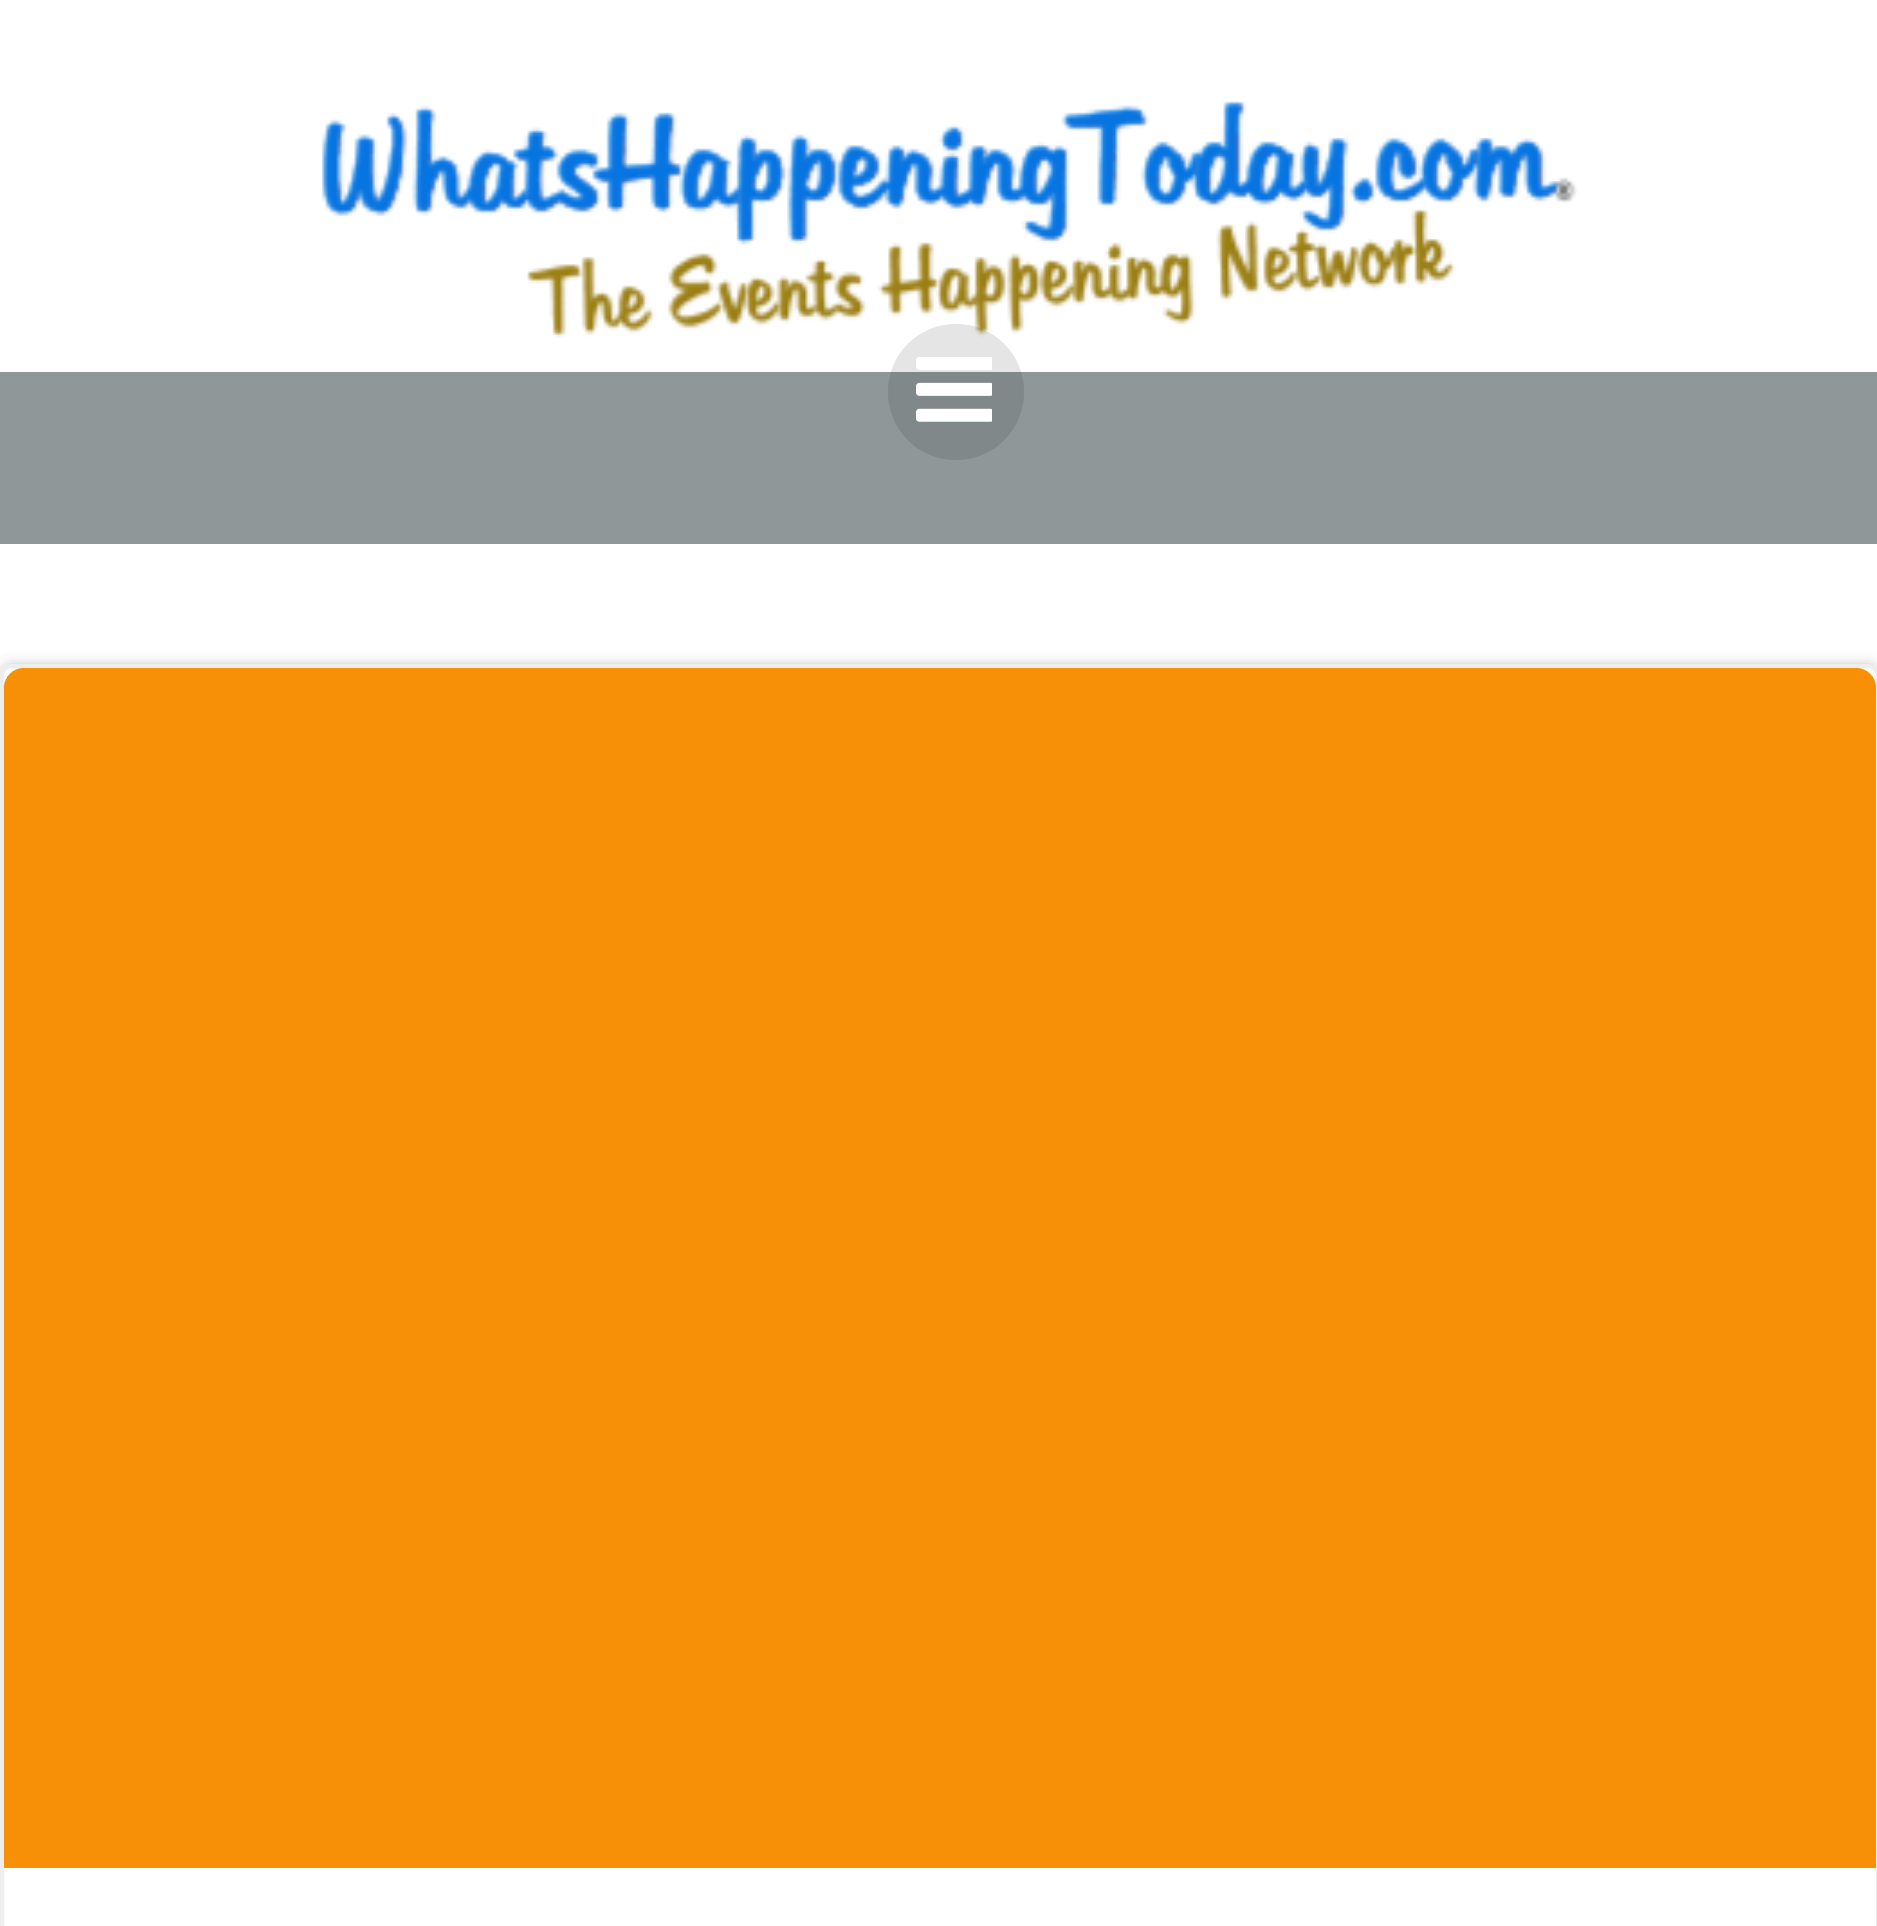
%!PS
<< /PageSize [1877 1926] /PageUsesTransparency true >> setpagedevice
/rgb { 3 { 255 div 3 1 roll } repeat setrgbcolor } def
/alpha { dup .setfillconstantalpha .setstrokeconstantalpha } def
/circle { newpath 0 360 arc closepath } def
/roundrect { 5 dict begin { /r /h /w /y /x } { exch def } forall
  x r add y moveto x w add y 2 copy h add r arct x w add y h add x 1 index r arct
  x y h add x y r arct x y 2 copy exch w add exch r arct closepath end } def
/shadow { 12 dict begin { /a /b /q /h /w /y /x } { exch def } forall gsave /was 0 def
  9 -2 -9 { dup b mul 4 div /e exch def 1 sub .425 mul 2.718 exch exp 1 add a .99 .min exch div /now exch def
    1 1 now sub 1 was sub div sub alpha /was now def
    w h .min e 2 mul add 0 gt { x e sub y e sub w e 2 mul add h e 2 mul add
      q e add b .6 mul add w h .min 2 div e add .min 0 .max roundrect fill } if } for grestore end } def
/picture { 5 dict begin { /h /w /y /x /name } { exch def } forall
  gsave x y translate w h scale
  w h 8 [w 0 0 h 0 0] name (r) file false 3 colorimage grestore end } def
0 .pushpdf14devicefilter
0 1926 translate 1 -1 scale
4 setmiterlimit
255 255 255 rgb
0 0 1877 1926 rectfill
(img/1.rgb) 321 101 1257 237 picture
144 151 153 rgb
0 372 1877 172 rectfill
0.1 alpha
0 0 0 rgb
956 392 68 circle fill
1 alpha
(img/2.rgb) 916 357 76 65 picture
gsave
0 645 moveto 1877 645 lineto 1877 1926 lineto 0 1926 lineto closepath 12 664 moveto 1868 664 lineto 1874.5 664 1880 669.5 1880 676 curveto 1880 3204 lineto 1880 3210.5 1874.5 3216 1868 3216 curveto 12 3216 lineto 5.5 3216 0 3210.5 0 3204 curveto 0 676 lineto 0 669.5 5.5 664 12 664 curveto closepath eoclip newpath
0 664 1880 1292 12 6 0.2 shadow
grestore
238 238 238 rgb
4 setlinewidth
2 666 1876 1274 10 roundrect stroke
247 144 7 rgb
24 668 moveto 1856 668 lineto 1867 668 1876 677 1876 688 curveto 1876 1868 lineto 4 1868 lineto 4 688 lineto 4 677 13 668 24 668 curveto closepath fill
.poppdf14devicefilter showpage
